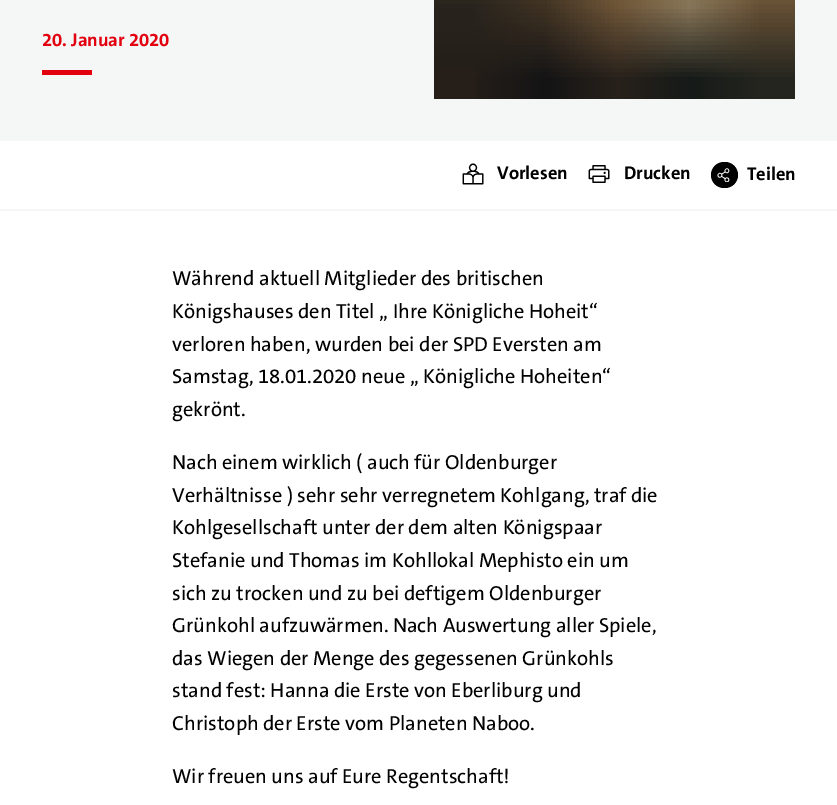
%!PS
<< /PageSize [837 805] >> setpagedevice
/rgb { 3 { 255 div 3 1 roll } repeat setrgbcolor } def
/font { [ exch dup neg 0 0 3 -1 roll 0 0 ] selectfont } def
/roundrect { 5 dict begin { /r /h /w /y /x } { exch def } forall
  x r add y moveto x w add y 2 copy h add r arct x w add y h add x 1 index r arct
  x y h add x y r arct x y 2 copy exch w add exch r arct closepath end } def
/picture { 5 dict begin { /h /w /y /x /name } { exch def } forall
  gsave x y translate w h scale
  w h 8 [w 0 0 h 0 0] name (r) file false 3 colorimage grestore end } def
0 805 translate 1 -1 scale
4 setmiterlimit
255 255 255 rgb
0 0 837 805 rectfill
245 246 246 rgb
0 0 837 141 rectfill
227 0 15 rgb
42 70 50 5 rectfill
(img/1.rgb) 434 0 361 99 picture
245 246 246 rgb
0 209 837 2 rectfill
(img/2.rgb) 462 163 22 22 picture
(img/3.rgb) 588 165 22 18 picture
0 0 0 rgb
711 162 27 26 13 roundrect fill
(img/4.rgb) 717 168 13 14 picture
/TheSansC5-Bold 18.5 font
227 0 15 rgb
42 46 moveto (20. Januar 2020) show
0 0 0 rgb
[
  [(Vorlesen) 497 179]
  [(Drucken) 624 179]
  [(Teilen) 747 180]
] { aload pop moveto show } forall
/TheSansC5-Medium 20.4 font
[
  [(Während aktuell Mitglieder des britischen) 172 285]
  [(Königshauses den Titel „ Ihre Königliche Hoheit“) 172 318]
  [(verloren haben, wurden bei der SPD Eversten am) 172 351]
  [(Samstag, 18.01.2020 neue „ Königliche Hoheiten“) 172 383]
  [(gekrönt.) 172 416]
  [(Nach einem wirklich \( auch für Oldenburger) 172 469]
  [(Verhältnisse \) sehr sehr verregnetem Kohlgang, traf die) 172 502]
  [(Kohlgesellschaft unter der dem alten Königspaar) 172 534]
  [(Stefanie und Thomas im Kohllokal Mephisto ein um) 172 567]
  [(sich zu trocken und zu bei deftigem Oldenburger) 172 600]
  [(Grünkohl aufzuwärmen. Nach Auswertung aller Spiele,) 172 632]
  [(das Wiegen der Menge des gegessenen Grünkohls) 172 665]
  [(stand fest: Hanna die Erste von Eberliburg und) 172 697]
  [(Christoph der Erste vom Planeten Naboo.) 172 730]
  [(Wir freuen uns auf Eure Regentschaft!) 172 783]
] { aload pop moveto show } forall
showpage
